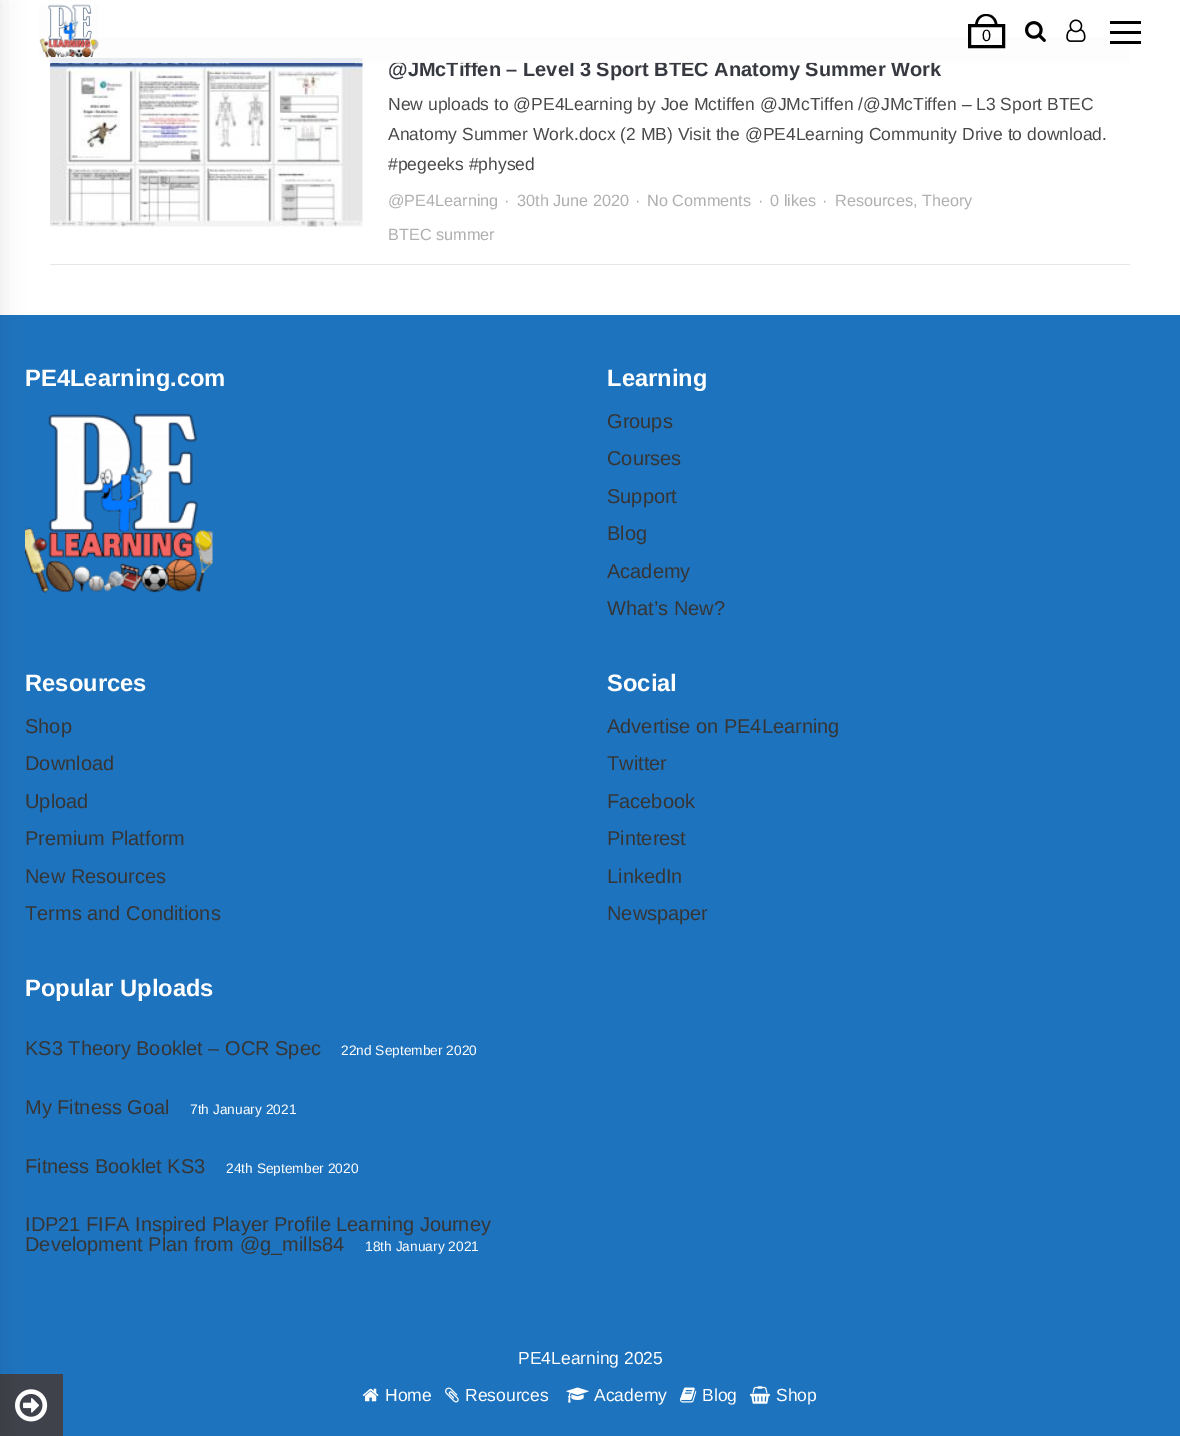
%!PS
<< /PageSize [1180 1436] /PageUsesTransparency true >> setpagedevice
/rgb { 3 { 255 div 3 1 roll } repeat setrgbcolor } def
/font { [ exch dup neg 0 0 3 -1 roll 0 0 ] selectfont } def
/alpha { dup .setfillconstantalpha .setstrokeconstantalpha } def
/roundrect { 5 dict begin { /r /h /w /y /x } { exch def } forall
  x r add y moveto x w add y 2 copy h add r arct x w add y h add x 1 index r arct
  x y h add x y r arct x y 2 copy exch w add exch r arct closepath end } def
/shadow { 12 dict begin { /a /b /q /h /w /y /x } { exch def } forall gsave /was 0 def
  9 -2 -9 { dup b mul 4 div /e exch def 1 sub .425 mul 2.718 exch exp 1 add a .99 .min exch div /now exch def
    1 1 now sub 1 was sub div sub alpha /was now def
    w h .min e 2 mul add 0 gt { x e sub y e sub w e 2 mul add h e 2 mul add
      q e add b .6 mul add w h .min 2 div e add .min 0 .max roundrect fill } if } for grestore end } def
/picture { 5 dict begin { /h /w /y /x /name } { exch def } forall
  gsave x y translate w h scale
  w h 8 [w 0 0 h 0 0] name (r) file false 3 colorimage grestore end } def
0 .pushpdf14devicefilter
0 1436 translate 1 -1 scale
4 setmiterlimit
255 255 255 rgb
0 0 1180 1436 rectfill
30 115 190 rgb
0 315 1180 1121 rectfill
(img/5.rgb) 25 413 188 180 picture
63 66 74 rgb
0 1374 63 62 rectfill
(img/11.rgb) 15 1389 33 33 picture
0 0 0 rgb
-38 0 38 1436 0 12.5 0.1 shadow
[
  [1110 31 31 3 0 0 0]
  [1110 21 31 3 0 0 0]
  [60 38 1070 1 230 230 230]
  [50 264 1080 1 230 230 230]
] { aload pop rgb rectfill } forall
(img/4.rgb) 50 57 313 170 picture
(img/6.rgb) 362 1388 17 14 picture
(img/7.rgb) 445 1387 14 16 picture
(img/8.rgb) 566 1387 23 16 picture
(img/9.rgb) 680 1387 17 16 picture
(img/10.rgb) 750 1386 20 18 picture
/LiberationSans-Bold 20 font
54 57 64 rgb
388 76 moveto (@JMcTiffen – Level 3 Sport BTEC Anatomy Summer Work) show
0.9 alpha
253 253 253 rgb
50 38 1080 25 rectfill
1 alpha
0 0 0 rgb
1110 41 31 3 rectfill
(img/3.rgb) 1066 19 20 23 picture
(img/2.rgb) 1025 21 21 21 picture
3 setlinewidth
969.5 25.5 34 21 rectstroke
986 14 moveto 993.5 14 997.5 19.5 997.5 26 curveto 975 26 lineto 975 19.5 979 14 986 14 curveto closepath 986 16 moveto 992 16 995 21 995 26 curveto 977.5 26 lineto 977.5 21 980.5 16 986 16 curveto closepath eofill
/LiberationSans-Regular 16.25 font
982 41 moveto (0) show
(img/1.rgb) 39 4 60 54 picture
/LiberationSans-Regular 17.5 font
73 73 73 rgb
[
  [(New uploads to @PE4Learning by Joe Mctiffen @JMcTiffen /@JMcTiffen – L3 Sport BTEC) 388 110]
  [(Anatomy Summer Work.docx \(2 MB\) Visit the @PE4Learning Community Drive to download.) 388 140]
  [(#pegeeks #physed) 388 170]
] { aload pop moveto show } forall
/LiberationSans-Regular 16.25 font
175 175 175 rgb
[
  [(@PE4Learning) 388 206]
  [(·) 504 206]
  [(30th June 2020) 517 206]
  [(·) 635 206]
  [(No Comments) 647 206]
  [(·) 758 206]
  [(0 likes) 770 206]
  [(·) 822 206]
  [(Resources, Theory) 835 206]
  [(BTEC) 388 240]
  [(summer) 436 240]
] { aload pop moveto show } forall
/LiberationSans-Bold 23.75 font
255 255 255 rgb
25 386 moveto (PE4Learning.com) show
607 386 moveto (Learning) show
/LiberationSans-Regular 20 font
53 53 53 rgb
[
  [(Groups) 607 428]
  [(Courses) 607 465]
  [(Support) 607 503]
  [(Blog) 607 540]
  [(Academy) 607 578]
  [(What’s New?) 607 615]
] { aload pop moveto show } forall
/LiberationSans-Bold 23.75 font
255 255 255 rgb
25 691 moveto (Resources) show
/LiberationSans-Regular 20 font
53 53 53 rgb
[
  [(Shop) 25 733]
  [(Download) 25 770]
  [(Upload) 25 808]
  [(Premium Platform) 25 845]
  [(New Resources) 25 883]
  [(Terms and Conditions) 25 920]
] { aload pop moveto show } forall
/LiberationSans-Bold 23.75 font
255 255 255 rgb
607 691 moveto (Social) show
/LiberationSans-Regular 20 font
53 53 53 rgb
[
  [(Advertise on PE4Learning) 607 733]
  [(Twitter) 607 770]
  [(Facebook) 607 808]
  [(Pinterest) 607 845]
  [(LinkedIn) 607 883]
  [(Newspaper) 607 920]
] { aload pop moveto show } forall
/LiberationSans-Bold 23.75 font
255 255 255 rgb
25 996 moveto (Popular Uploads) show
/LiberationSans-Regular 20 font
53 53 53 rgb
25 1055 moveto (KS3 Theory Booklet – OCR Spec) show
/LiberationSans-Regular 13.75 font
255 255 255 rgb
341 1055 moveto (22nd September 2020) show
/LiberationSans-Regular 20 font
53 53 53 rgb
25 1114 moveto (My Fitness Goal) show
/LiberationSans-Regular 13.75 font
255 255 255 rgb
190 1114 moveto (7th January 2021) show
/LiberationSans-Regular 20 font
53 53 53 rgb
25 1173 moveto (Fitness Booklet KS3) show
/LiberationSans-Regular 13.75 font
255 255 255 rgb
226 1173 moveto (24th September 2020) show
/LiberationSans-Regular 20 font
53 53 53 rgb
25 1231 moveto (IDP21 FIFA Inspired Player Profile Learning Journey) show
25 1251 moveto (Development Plan from @g_mills84) show
/LiberationSans-Regular 13.75 font
255 255 255 rgb
365 1251 moveto (18th January 2021) show
/LiberationSans-Regular 17.5 font
[
  [(PE4Learning 2025) 518 1364]
  [(Home) 385 1401]
  [(Resources) 465 1401]
  [(Academy) 594 1401]
  [(Blog) 702 1401]
  [(Shop) 776 1401]
] { aload pop moveto show } forall
.poppdf14devicefilter showpage
